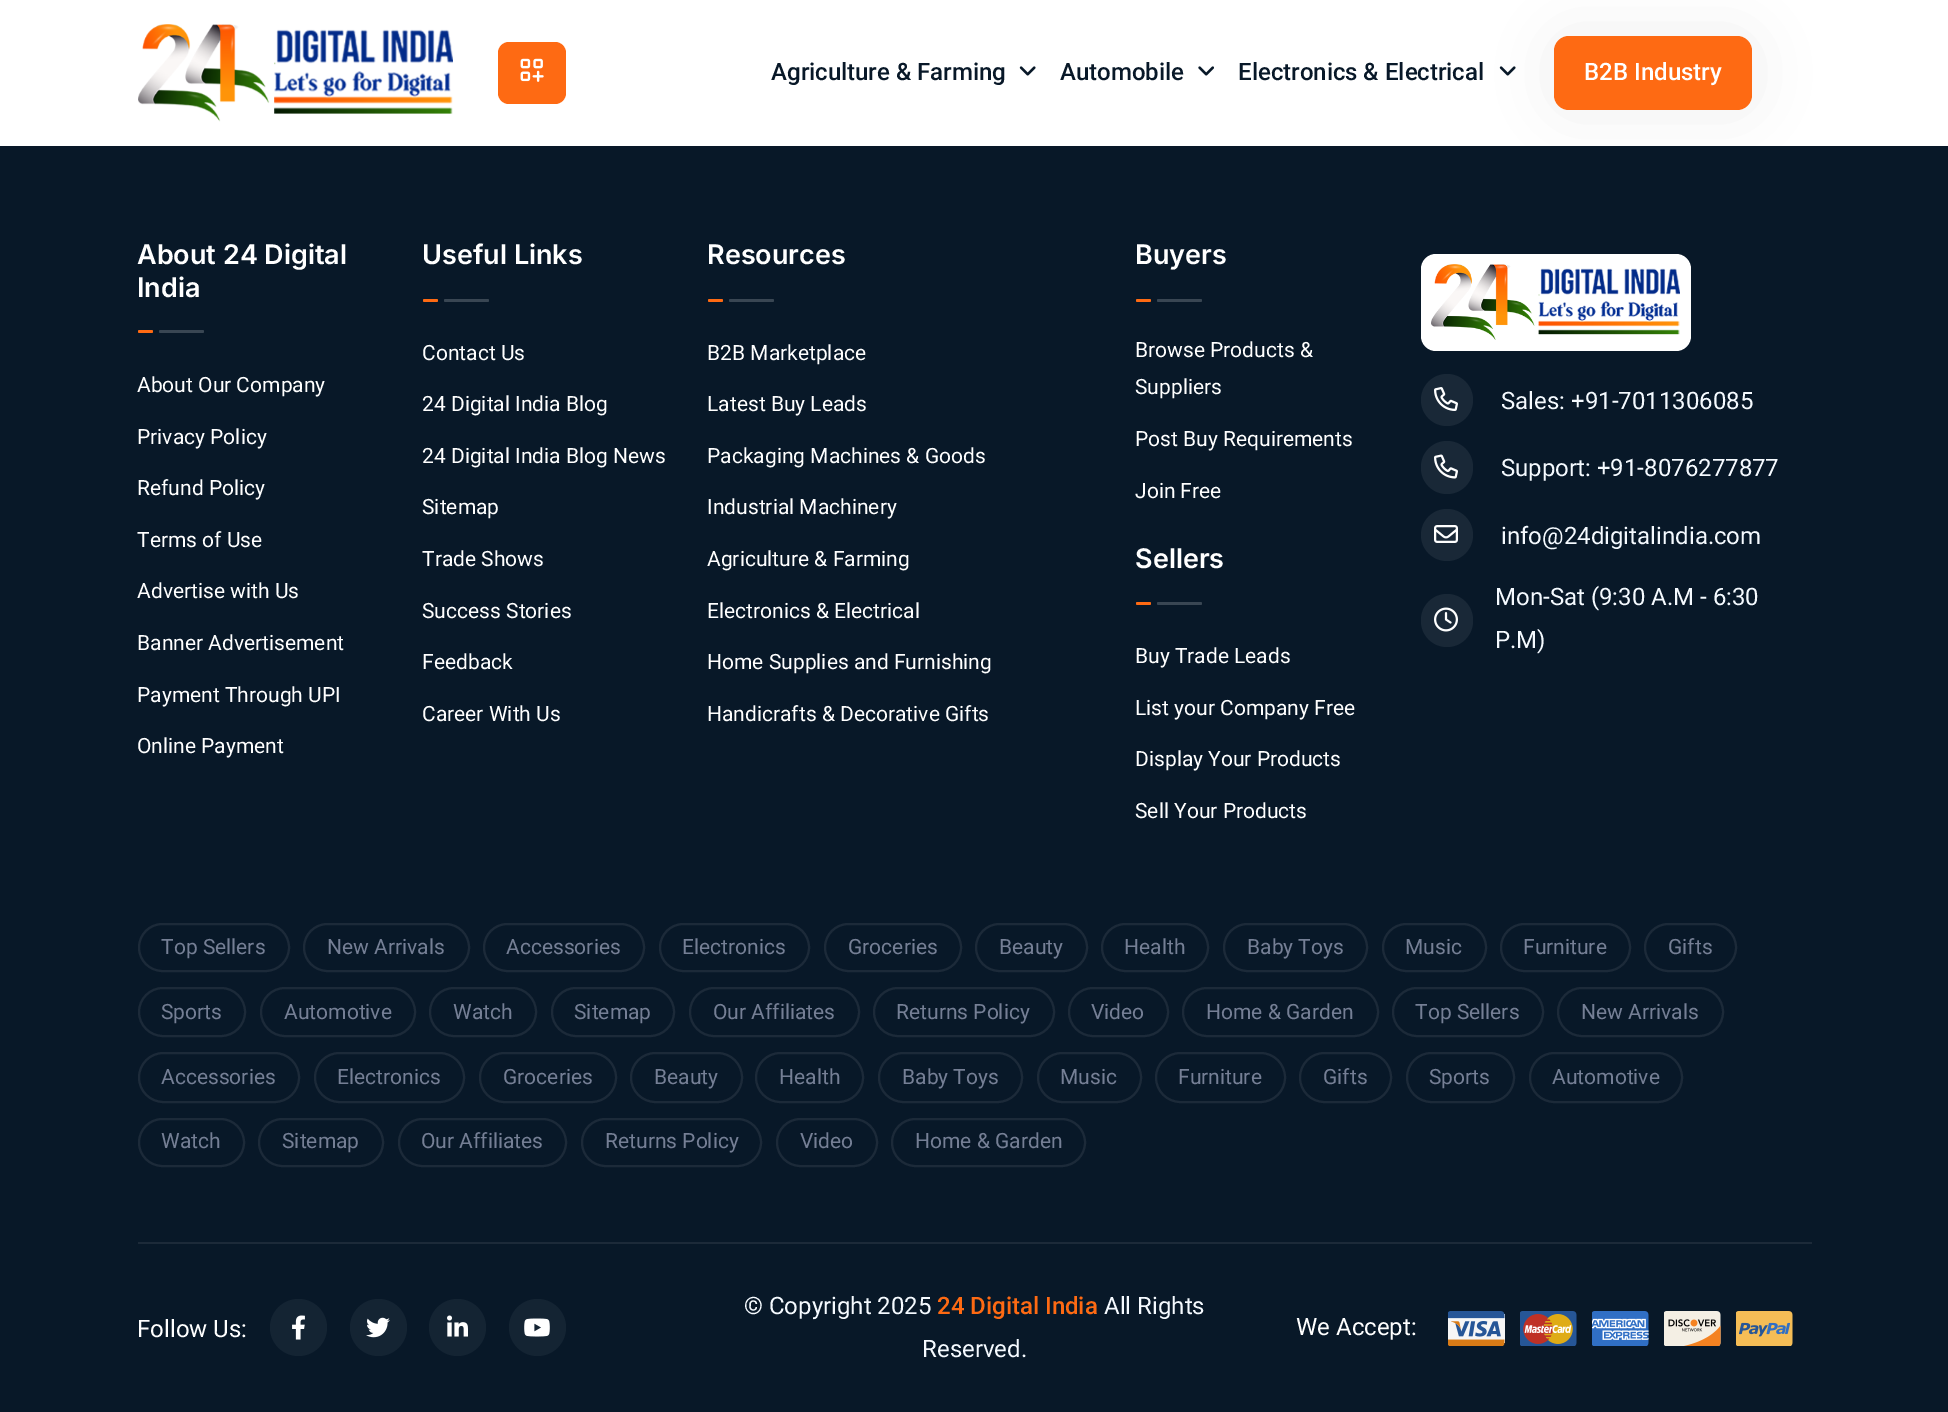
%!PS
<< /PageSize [1948 1412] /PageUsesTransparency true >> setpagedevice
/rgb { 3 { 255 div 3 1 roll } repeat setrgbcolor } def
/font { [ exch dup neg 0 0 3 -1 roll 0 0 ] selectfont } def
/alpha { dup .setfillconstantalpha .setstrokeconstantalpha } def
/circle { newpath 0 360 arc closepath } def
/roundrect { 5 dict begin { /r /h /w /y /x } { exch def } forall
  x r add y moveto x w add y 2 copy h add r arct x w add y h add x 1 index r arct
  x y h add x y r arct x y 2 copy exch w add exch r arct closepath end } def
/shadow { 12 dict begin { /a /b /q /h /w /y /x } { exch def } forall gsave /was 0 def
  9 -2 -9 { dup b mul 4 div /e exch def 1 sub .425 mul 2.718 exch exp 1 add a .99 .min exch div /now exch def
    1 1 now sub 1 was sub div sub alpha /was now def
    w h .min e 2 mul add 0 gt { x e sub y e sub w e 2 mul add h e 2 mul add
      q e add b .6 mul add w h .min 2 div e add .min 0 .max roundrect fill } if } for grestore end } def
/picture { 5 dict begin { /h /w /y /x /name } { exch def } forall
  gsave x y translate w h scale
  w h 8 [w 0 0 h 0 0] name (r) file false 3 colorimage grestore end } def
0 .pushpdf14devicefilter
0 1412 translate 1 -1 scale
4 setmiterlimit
8 24 40 rgb
0 0 1948 1412 rectfill
255 255 255 rgb
0 0 1948 146 rectfill
(img/1.rgb) 138 24 315 98 picture
254 106 19 rgb
498 42 68 62 11 roundrect fill
(img/2.rgb) 520 58 24 24 picture
(img/3.rgb) 1019 66 17 10 picture
(img/4.rgb) 1198 66 16 10 picture
(img/3.rgb) 1499 66 17 10 picture
0 0 0 rgb
1547 29 213 88 23 30 0.05 shadow
254 106 19 rgb
1554 36 198 74 15 roundrect fill
138 330 15 3 1.5 roundrect fill
57 70 83 rgb
159 330 45 3 1.5 roundrect fill
254 106 19 rgb
423 299 15 3 1.5 roundrect fill
57 70 83 rgb
444 299 45 3 1.5 roundrect fill
254 106 19 rgb
708 299 15 3 1.5 roundrect fill
57 70 83 rgb
729 299 45 3 1.5 roundrect fill
254 106 19 rgb
1136 299 15 3 1.5 roundrect fill
57 70 83 rgb
1157 299 45 3 1.5 roundrect fill
254 106 19 rgb
1136 602 15 3 1.5 roundrect fill
57 70 83 rgb
1157 602 45 3 1.5 roundrect fill
255 255 255 rgb
1421 254 270 97 15 roundrect fill
(img/5.rgb) 1431 264 249 76 picture
25 40 55 rgb
1447 400 26 circle fill
(img/6.rgb) 1434 387 24 24 picture
1421 441 52 53 26 roundrect fill
(img/7.rgb) 1434 454 24 25 picture
1447 535 26 circle fill
(img/8.rgb) 1434 525 24 18 picture
1421 594 52 53 26 roundrect fill
(img/9.rgb) 1434 607 24 25 picture
28 42 57 rgb
2 setlinewidth
139 924 150 47 23.5 roundrect stroke
304 924 165 47 23.5 roundrect stroke
484 924 160 47 23.5 roundrect stroke
660 924 149 47 23.5 roundrect stroke
825 924 136 47 23.5 roundrect stroke
976 924 111 47 23.5 roundrect stroke
1102 924 106 47 23.5 roundrect stroke
1224 924 143 47 23.5 roundrect stroke
1383 924 103 47 23.5 roundrect stroke
1501 924 129 47 23.5 roundrect stroke
1645 924 91 47 23.5 roundrect stroke
139 988 106 48 24 roundrect stroke
261 988 154 48 24 roundrect stroke
430 988 106 48 24 roundrect stroke
552 988 122 48 24 roundrect stroke
690 988 169 48 24 roundrect stroke
874 988 180 48 24 roundrect stroke
1069 988 99 48 24 roundrect stroke
1183 988 195 48 24 roundrect stroke
1393 988 150 48 24 roundrect stroke
1558 988 165 48 24 roundrect stroke
139 1053 160 49 24.5 roundrect stroke
315 1053 149 49 24.5 roundrect stroke
480 1053 136 49 24.5 roundrect stroke
631 1053 111 49 24.5 roundrect stroke
756 1053 107 49 24.5 roundrect stroke
879 1053 143 49 24.5 roundrect stroke
1038 1053 103 49 24.5 roundrect stroke
1156 1053 129 49 24.5 roundrect stroke
1300 1053 91 49 24.5 roundrect stroke
1407 1053 107 49 24.5 roundrect stroke
1530 1053 152 49 24.5 roundrect stroke
139 1119 105 47 23.5 roundrect stroke
259 1119 124 47 23.5 roundrect stroke
399 1119 167 47 23.5 roundrect stroke
582 1119 179 47 23.5 roundrect stroke
777 1119 100 47 23.5 roundrect stroke
892 1119 193 47 23.5 roundrect stroke
138 1242 1674 2 rectfill
20 36 51 rgb
298.5 1327.5 28.5 circle fill
(img/10.rgb) 292 1315 13 25 picture
378.5 1327.5 28.5 circle fill
(img/11.rgb) 366 1317 24 21 picture
457.5 1327.5 28.5 circle fill
(img/12.rgb) 447 1315 21 22 picture
537.5 1327.5 28.5 circle fill
(img/13.rgb) 524 1318 26 19 picture
(img/14.rgb) 1448 1311 57 35 picture
(img/15.rgb) 1520 1311 57 35 picture
(img/16.rgb) 1592 1311 57 35 picture
(img/17.rgb) 1664 1311 57 35 picture
(img/18.rgb) 1736 1311 57 35 picture
/Roboto-Medium 24 font
8 24 40 rgb
[
  [(Agriculture & Farming) 771 80]
  [(Automobile) 1060 80]
  [(Electronics & Electrical) 1238 80]
] { aload pop moveto show } forall
255 255 255 rgb
1584 80 moveto (B2B Industry) show
/Inter-SemiBold 27 font
137 264 moveto (About 24 Digital) show
137 297 moveto (India) show
/Roboto-Regular 21 font
[
  [(About Our Company) 137 392]
  [(Privacy Policy) 137 444]
  [(Refund Policy) 137 495]
  [(Terms of Use) 137 547]
  [(Advertise with Us) 137 598]
  [(Banner Advertisement) 137 650]
  [(Payment Through UPI) 137 702]
  [(Online Payment) 137 753]
] { aload pop moveto show } forall
/Inter-SemiBold 27 font
422 264 moveto (Useful Links) show
/Roboto-Regular 21 font
[
  [(Contact Us) 422 360]
  [(24 Digital India Blog) 422 411]
  [(24 Digital India Blog News) 422 463]
  [(Sitemap) 422 514]
  [(Trade Shows) 422 566]
  [(Success Stories) 422 618]
  [(Feedback) 422 669]
  [(Career With Us) 422 721]
] { aload pop moveto show } forall
/Inter-SemiBold 27 font
707 264 moveto (Resources) show
/Roboto-Regular 21 font
[
  [(B2B Marketplace) 707 360]
  [(Latest Buy Leads) 707 411]
  [(Packaging Machines & Goods) 707 463]
  [(Industrial Machinery) 707 514]
  [(Agriculture & Farming) 707 566]
  [(Electronics & Electrical) 707 618]
  [(Home Supplies and Furnishing) 707 669]
  [(Handicrafts & Decorative Gifts) 707 721]
] { aload pop moveto show } forall
/Inter-SemiBold 27 font
1135 264 moveto (Buyers) show
/Roboto-Regular 21 font
[
  [(Browse Products &) 1135 357]
  [(Suppliers) 1135 394]
  [(Post Buy Requirements) 1135 446]
  [(Join Free) 1135 498]
] { aload pop moveto show } forall
/Inter-SemiBold 27 font
1135 568 moveto (Sellers) show
/Roboto-Regular 21 font
[
  [(Buy Trade Leads) 1135 663]
  [(List your Company Free) 1135 715]
  [(Display Your Products) 1135 766]
  [(Sell Your Products) 1135 818]
] { aload pop moveto show } forall
/Roboto-Regular 24 font
245 250 255 rgb
[
  [(Sales: +91-7011306085) 1501 409]
  [(Support: +91-8076277877) 1501 476]
  [(info@24digitalindia.com) 1501 544]
  [(Mon-Sat \(9:30 A.M - 6:30) 1495 605]
  [(P.M\)) 1495 648]
] { aload pop moveto show } forall
/Roboto-Regular 21 font
117 127 149 rgb
[
  [(Top Sellers) 161 954]
  [(New Arrivals) 327 954]
  [(Accessories) 506 954]
  [(Electronics) 682 954]
  [(Groceries) 848 954]
  [(Beauty) 999 954]
  [(Health) 1124 954]
  [(Baby Toys) 1247 954]
  [(Music) 1405 954]
  [(Furniture) 1523 954]
  [(Gifts) 1668 954]
  [(Sports) 161 1019]
  [(Automotive) 284 1019]
  [(Watch) 453 1019]
  [(Sitemap) 574 1019]
  [(Our Affiliates) 713 1019]
  [(Returns Policy) 896 1019]
  [(Video) 1091 1019]
  [(Home & Garden) 1206 1019]
  [(Top Sellers) 1415 1019]
  [(New Arrivals) 1581 1019]
  [(Accessories) 161 1084]
  [(Electronics) 337 1084]
  [(Groceries) 503 1084]
  [(Beauty) 654 1084]
  [(Health) 779 1084]
  [(Baby Toys) 902 1084]
  [(Music) 1060 1084]
  [(Furniture) 1178 1084]
  [(Gifts) 1323 1084]
  [(Sports) 1429 1084]
  [(Automotive) 1552 1084]
  [(Watch) 161 1148]
  [(Sitemap) 282 1148]
  [(Our Affiliates) 421 1148]
  [(Returns Policy) 605 1148]
  [(Video) 800 1148]
  [(Home & Garden) 915 1148]
] { aload pop moveto show } forall
/Roboto-Regular 24 font
255 255 255 rgb
137 1337 moveto (Follow Us:) show
245 250 255 rgb
744 1314 moveto (© Copyright 2025) show
/Roboto-Medium 24 font
254 106 19 rgb
937 1314 moveto (24 Digital India) show
/Roboto-Regular 24 font
245 250 255 rgb
1104 1314 moveto (All Rights) show
922 1357 moveto (Reserved.) show
255 255 255 rgb
1296 1335 moveto (We Accept:) show
.poppdf14devicefilter showpage
